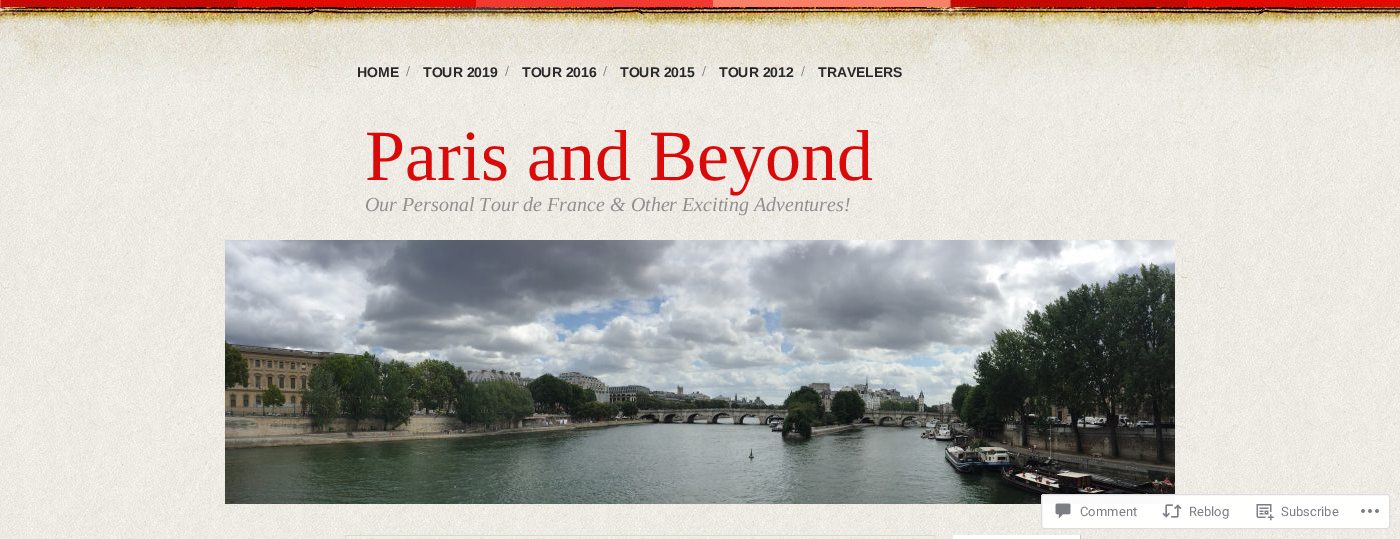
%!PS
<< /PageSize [1400 539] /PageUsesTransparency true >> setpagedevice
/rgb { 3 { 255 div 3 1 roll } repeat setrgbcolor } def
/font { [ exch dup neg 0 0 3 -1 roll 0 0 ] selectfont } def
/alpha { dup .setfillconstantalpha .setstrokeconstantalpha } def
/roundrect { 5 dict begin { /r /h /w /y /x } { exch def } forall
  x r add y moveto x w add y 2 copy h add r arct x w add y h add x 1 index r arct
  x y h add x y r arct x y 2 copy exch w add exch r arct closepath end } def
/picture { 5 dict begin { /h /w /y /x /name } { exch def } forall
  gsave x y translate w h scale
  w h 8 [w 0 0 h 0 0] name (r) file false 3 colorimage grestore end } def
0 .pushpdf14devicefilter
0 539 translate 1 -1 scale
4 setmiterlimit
255 255 255 rgb
0 0 1400 539 rectfill
(img/1.rgb) 0 110 1400 429 picture
(img/2.rgb) 0 0 1400 110 picture
(img/3.rgb) 406 66 4 10 picture
(img/4.rgb) 505 66 4 10 picture
(img/5.rgb) 603 66 4 10 picture
(img/6.rgb) 702 66 4 10 picture
(img/7.rgb) 801 66 4 10 picture
(img/8.rgb) 225 240 950 264 picture
216 215 212 rgb
345.5 535.5 589 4 rectstroke
(img/9.rgb) 347 537 586 2 picture
240 239 228 rgb
346.5 536.5 587 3 rectstroke
(img/10.rgb) 953 535 128 4 picture
0.98 alpha
255 255 255 rgb
1041 494 349 35 3 roundrect fill
220 220 222 rgb
1041.5 494.5 348 34 2.5 roundrect stroke
1 alpha
(img/11.rgb) 1055 503 16 16 picture
(img/12.rgb) 1162 504 20 14 picture
(img/13.rgb) 1256 504 18 17 picture
(img/14.rgb) 1361 509 18 4 picture
/LiberationSans-Bold 14 font
41 41 41 rgb
[
  [(HOME) 357 77]
  [(TOUR 2019) 423 77]
  [(TOUR 2016) 522 77]
  [(TOUR 2015) 620 77]
  [(TOUR 2012) 719 77]
  [(TRAVELERS) 818 77]
] { aload pop moveto show } forall
/LiberationSerif-Regular 72 font
218 10 10 rgb
365 180 moveto (Paris and Beyond) show
/LiberationSerif-Italic 20 font
144 144 144 rgb
365 211 moveto (Our Personal Tour de France & Other Exciting Adventures!) show
/Roboto-Regular 13 font
123 127 132 rgb
[
  [(Comment) 1080 516]
  [(Reblog) 1189 516]
  [(Subscribe) 1281 516]
] { aload pop moveto show } forall
.poppdf14devicefilter showpage
